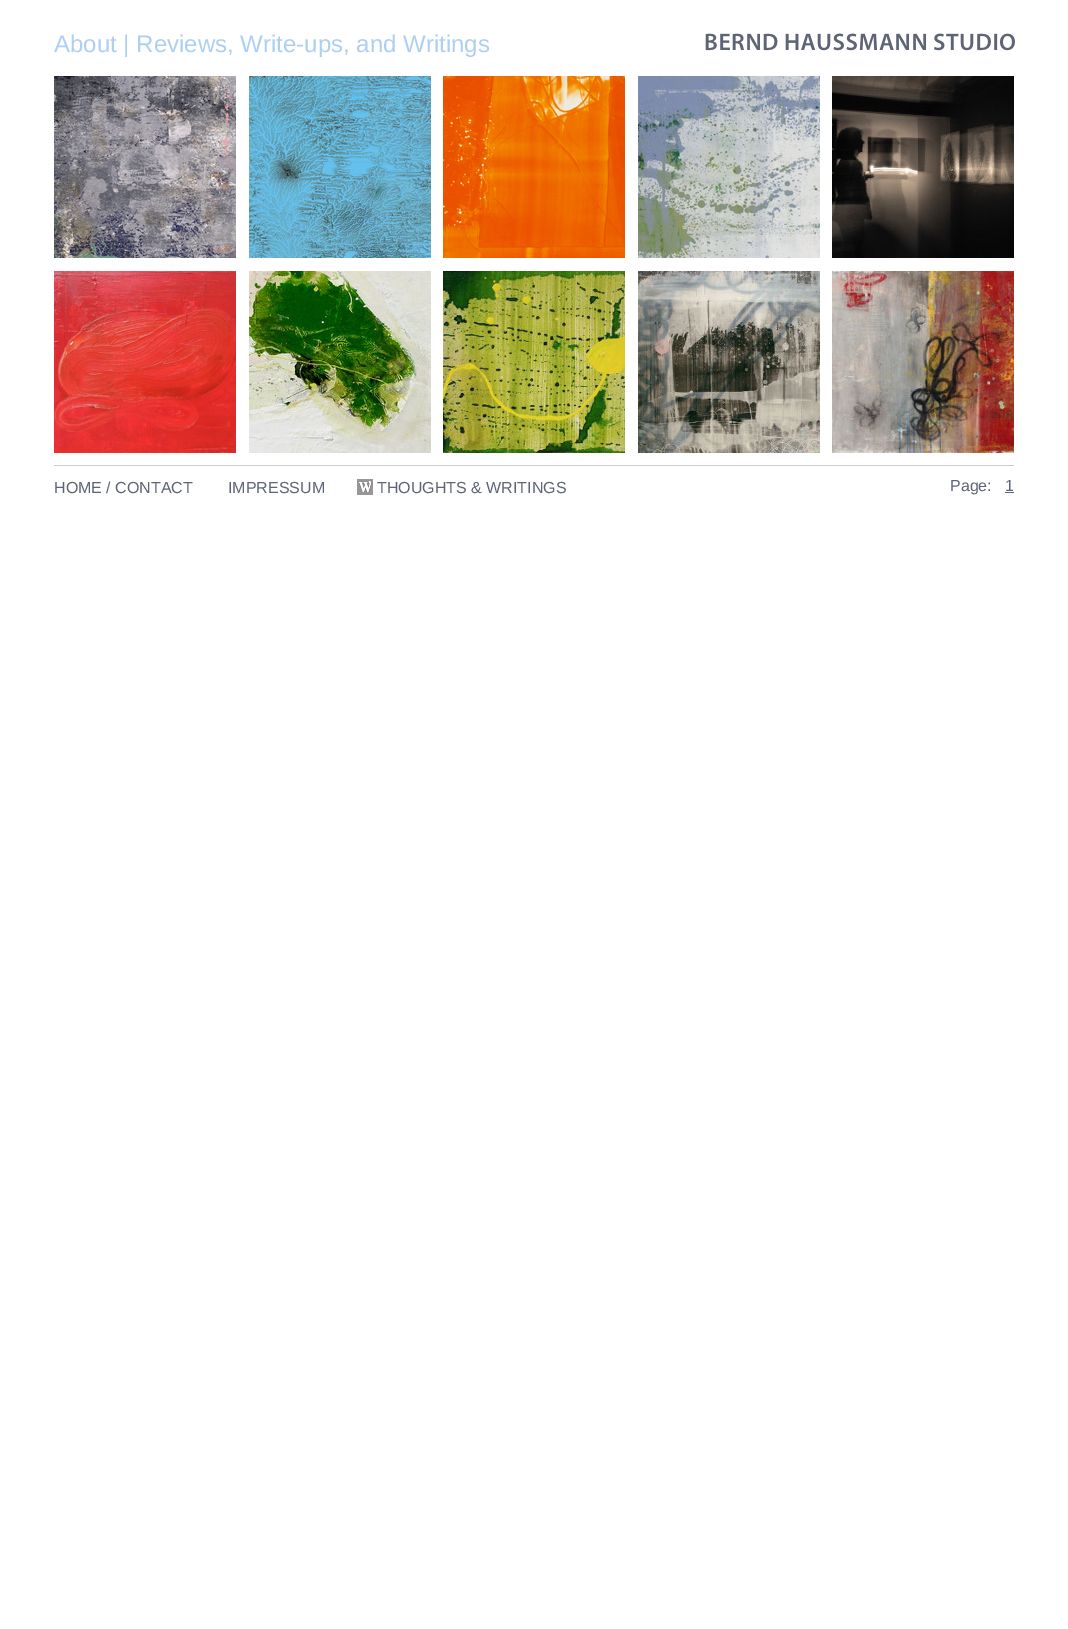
%!PS
<< /PageSize [1068 1629] >> setpagedevice
/rgb { 3 { 255 div 3 1 roll } repeat setrgbcolor } def
/font { [ exch dup neg 0 0 3 -1 roll 0 0 ] selectfont } def
/picture { 5 dict begin { /h /w /y /x /name } { exch def } forall
  gsave x y translate w h scale
  w h 8 [w 0 0 h 0 0] name (r) file false 3 colorimage grestore end } def
0 1629 translate 1 -1 scale
4 setmiterlimit
255 255 255 rgb
0 0 1068 1629 rectfill
(img/1.rgb) 705 33 310 18 picture
(img/2.rgb) 54 76 182 182 picture
(img/3.rgb) 249 76 182 182 picture
(img/4.rgb) 443 76 182 182 picture
(img/5.rgb) 638 76 182 182 picture
(img/6.rgb) 832 76 182 182 picture
(img/7.rgb) 54 271 182 182 picture
(img/8.rgb) 249 271 182 182 picture
(img/9.rgb) 443 271 182 182 picture
(img/10.rgb) 638 271 182 182 picture
(img/11.rgb) 832 271 182 182 picture
203 203 203 rgb
54 465 960 1 rectfill
(img/12.rgb) 357 479 16 16 picture
93 100 118 rgb
1005 492 9 1 rectfill
/LiberationSans-Regular 24 font
173 207 242 rgb
54 52 moveto (About | Reviews, Write-ups, and Writings) show
/LiberationSans-Regular 16 font
93 100 118 rgb
[
  [(HOME / CONTACT) 54 493]
  [(IMPRESSUM) 228 493]
  [(THOUGHTS & WRITINGS) 377 493]
  [(Page:) 950 491]
  [(1) 1005 491]
] { aload pop moveto show } forall
showpage
